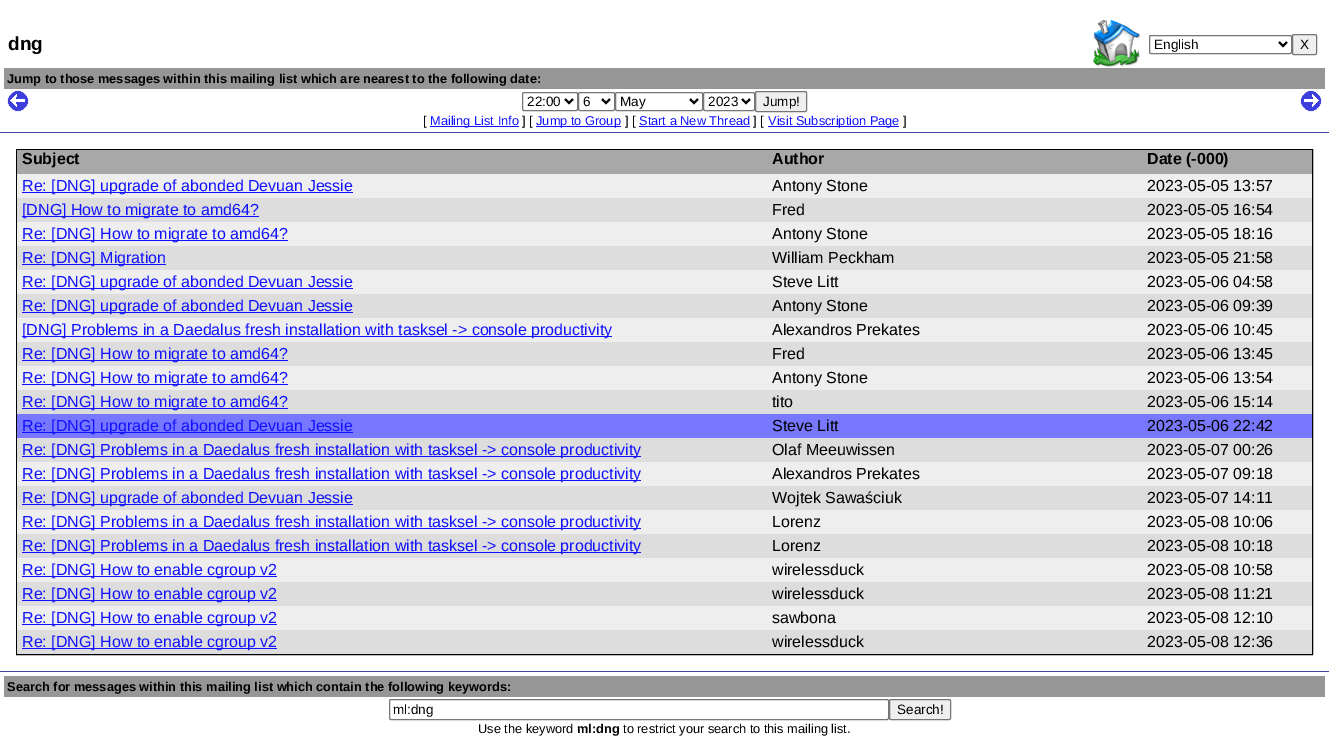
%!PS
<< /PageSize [1329 748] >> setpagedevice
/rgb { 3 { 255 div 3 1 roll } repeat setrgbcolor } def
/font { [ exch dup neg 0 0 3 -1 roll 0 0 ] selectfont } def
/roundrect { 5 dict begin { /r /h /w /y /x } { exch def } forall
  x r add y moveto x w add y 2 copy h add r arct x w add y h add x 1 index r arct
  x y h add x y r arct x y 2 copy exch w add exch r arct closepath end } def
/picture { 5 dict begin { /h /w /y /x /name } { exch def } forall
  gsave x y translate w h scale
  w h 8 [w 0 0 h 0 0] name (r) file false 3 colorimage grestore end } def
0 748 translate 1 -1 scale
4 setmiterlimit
255 255 255 rgb
0 0 1329 748 rectfill
67 67 153 rgb
0 132 1329 1 rectfill
(img/1.rgb) 1093 20 48 48 picture
118 118 118 rgb
1149.5 35.5 142 18 1.5 roundrect stroke
0 0 0 rgb
2 setlinewidth
1279 42 moveto 1283 46 lineto 1287 42 lineto stroke
239 239 239 rgb
1292.5 34.5 24 20 1.5 roundrect gsave fill grestore
118 118 118 rgb
1 setlinewidth
stroke
150 150 150 rgb
4 68 1321 21 rectfill
(img/2.rgb) 7 90 22 22 picture
118 118 118 rgb
522.5 92.5 55 18 1.5 roundrect stroke
0 0 0 rgb
2 setlinewidth
565 99 moveto 569 103 lineto 573 99 lineto stroke
118 118 118 rgb
1 setlinewidth
578.5 92.5 36 18 1.5 roundrect stroke
0 0 0 rgb
2 setlinewidth
602 99 moveto 606 103 lineto 610 99 lineto stroke
118 118 118 rgb
1 setlinewidth
615.5 92.5 87 18 1.5 roundrect stroke
0 0 0 rgb
2 setlinewidth
690 99 moveto 694 103 lineto 698 99 lineto stroke
118 118 118 rgb
1 setlinewidth
703.5 92.5 51 18 1.5 roundrect stroke
0 0 0 rgb
2 setlinewidth
742 99 moveto 746 103 lineto 750 99 lineto stroke
239 239 239 rgb
755.5 91.5 51 20 1.5 roundrect gsave fill grestore
118 118 118 rgb
1 setlinewidth
stroke
(img/3.rgb) 1300 90 22 22 picture
[
  [430 126 89 1 17 17 255]
  [536 126 85 1 17 17 255]
  [639 126 111 1 17 17 255]
  [768 126 131 1 17 17 255]
] { aload pop rgb rectfill } forall
0 0 0 rgb
16.5 149.5 1296 505 rectstroke
[
  [17 150 1295 24 168 168 168]
  [17 174 1295 24 238 238 238]
  [22 192 331 1 17 17 255]
  [17 198 1295 24 221 221 221]
  [22 216 237 1 17 17 255]
  [17 222 1295 24 238 238 238]
  [22 240 266 1 17 17 255]
  [17 246 1295 24 221 221 221]
  [22 264 144 1 17 17 255]
  [17 270 1295 24 238 238 238]
  [22 288 331 1 17 17 255]
  [17 294 1295 24 221 221 221]
  [22 312 331 1 17 17 255]
  [17 318 1295 24 238 238 238]
  [22 336 590 1 17 17 255]
  [17 342 1295 24 221 221 221]
  [22 360 266 1 17 17 255]
  [17 366 1295 24 238 238 238]
  [22 384 266 1 17 17 255]
  [17 390 1295 24 221 221 221]
  [22 408 266 1 17 17 255]
  [17 414 1295 24 119 119 255]
  [22 432 331 1 17 17 255]
  [17 438 1295 24 221 221 221]
  [22 456 619 1 17 17 255]
  [17 462 1295 24 238 238 238]
  [22 480 619 1 17 17 255]
  [17 486 1295 24 221 221 221]
  [22 504 331 1 17 17 255]
  [17 510 1295 24 238 238 238]
  [22 528 619 1 17 17 255]
  [17 534 1295 24 221 221 221]
  [22 552 619 1 17 17 255]
  [17 558 1295 24 238 238 238]
  [22 576 255 1 17 17 255]
  [17 582 1295 24 221 221 221]
  [22 600 255 1 17 17 255]
  [17 606 1295 24 238 238 238]
  [22 624 255 1 17 17 255]
  [17 630 1295 24 221 221 221]
  [22 648 255 1 17 17 255]
  [0 671 1329 1 67 67 153]
  [4 676 1321 21 150 150 150]
] { aload pop rgb rectfill } forall
118 118 118 rgb
389.5 699.5 499 20 1.5 roundrect stroke
239 239 239 rgb
889.5 699.5 61 20 1.5 roundrect gsave fill grestore
118 118 118 rgb
stroke
/LiberationSans-Bold 19 font
0 0 0 rgb
8 50 moveto (dng) show
/LiberationSans-Regular 13.5 font
1154 49 moveto (English) show
1300 49 moveto (X) show
/LiberationSans-Bold 12.8 font
7 83 moveto (Jump to those messages within this mailing list which are nearest to the following date:) show
/LiberationSans-Regular 13.5 font
[
  [(22:00) 527 106]
  [(6) 583 106]
  [(May) 620 106]
  [(2023) 708 106]
  [(Jump!) 763 106]
] { aload pop moveto show } forall
/LiberationSans-Regular 12.8 font
423 125 moveto ([) show
17 17 255 rgb
430 125 moveto (Mailing List Info) show
0 0 0 rgb
522 125 moveto (] [) show
17 17 255 rgb
536 125 moveto (Jump to Group) show
0 0 0 rgb
625 125 moveto (] [) show
17 17 255 rgb
639 125 moveto (Start a New Thread) show
0 0 0 rgb
753 125 moveto (] [) show
17 17 255 rgb
768 125 moveto (Visit Subscription Page) show
0 0 0 rgb
903 125 moveto (]) show
/LiberationSans-Bold 16 font
[
  [(Subject) 22 164]
  [(Author) 772 164]
  [(Date \(-000\)) 1147 164]
] { aload pop moveto show } forall
/LiberationSans-Regular 16 font
17 17 255 rgb
22 191 moveto (Re: [DNG] upgrade of abonded Devuan Jessie) show
0 0 0 rgb
772 191 moveto (Antony Stone) show
1147 191 moveto (2023-05-05 13:57) show
17 17 255 rgb
22 215 moveto ([DNG] How to migrate to amd64?) show
0 0 0 rgb
772 215 moveto (Fred) show
1147 215 moveto (2023-05-05 16:54) show
17 17 255 rgb
22 239 moveto (Re: [DNG] How to migrate to amd64?) show
0 0 0 rgb
772 239 moveto (Antony Stone) show
1147 239 moveto (2023-05-05 18:16) show
17 17 255 rgb
22 263 moveto (Re: [DNG] Migration) show
0 0 0 rgb
772 263 moveto (William Peckham) show
1147 263 moveto (2023-05-05 21:58) show
17 17 255 rgb
22 287 moveto (Re: [DNG] upgrade of abonded Devuan Jessie) show
0 0 0 rgb
772 287 moveto (Steve Litt) show
1147 287 moveto (2023-05-06 04:58) show
17 17 255 rgb
22 311 moveto (Re: [DNG] upgrade of abonded Devuan Jessie) show
0 0 0 rgb
772 311 moveto (Antony Stone) show
1147 311 moveto (2023-05-06 09:39) show
17 17 255 rgb
22 335 moveto ([DNG] Problems in a Daedalus fresh installation with tasksel -> console productivity) show
0 0 0 rgb
772 335 moveto (Alexandros Prekates) show
1147 335 moveto (2023-05-06 10:45) show
17 17 255 rgb
22 359 moveto (Re: [DNG] How to migrate to amd64?) show
0 0 0 rgb
772 359 moveto (Fred) show
1147 359 moveto (2023-05-06 13:45) show
17 17 255 rgb
22 383 moveto (Re: [DNG] How to migrate to amd64?) show
0 0 0 rgb
772 383 moveto (Antony Stone) show
1147 383 moveto (2023-05-06 13:54) show
17 17 255 rgb
22 407 moveto (Re: [DNG] How to migrate to amd64?) show
0 0 0 rgb
772 407 moveto (tito) show
1147 407 moveto (2023-05-06 15:14) show
17 17 255 rgb
22 431 moveto (Re: [DNG] upgrade of abonded Devuan Jessie) show
0 0 0 rgb
772 431 moveto (Steve Litt) show
1147 431 moveto (2023-05-06 22:42) show
17 17 255 rgb
22 455 moveto (Re: [DNG] Problems in a Daedalus fresh installation with tasksel -> console productivity) show
0 0 0 rgb
772 455 moveto (Olaf Meeuwissen) show
1147 455 moveto (2023-05-07 00:26) show
17 17 255 rgb
22 479 moveto (Re: [DNG] Problems in a Daedalus fresh installation with tasksel -> console productivity) show
0 0 0 rgb
772 479 moveto (Alexandros Prekates) show
1147 479 moveto (2023-05-07 09:18) show
17 17 255 rgb
22 503 moveto (Re: [DNG] upgrade of abonded Devuan Jessie) show
0 0 0 rgb
772 503 moveto (Wojtek Sawaściuk) show
1147 503 moveto (2023-05-07 14:11) show
17 17 255 rgb
22 527 moveto (Re: [DNG] Problems in a Daedalus fresh installation with tasksel -> console productivity) show
0 0 0 rgb
772 527 moveto (Lorenz) show
1147 527 moveto (2023-05-08 10:06) show
17 17 255 rgb
22 551 moveto (Re: [DNG] Problems in a Daedalus fresh installation with tasksel -> console productivity) show
0 0 0 rgb
772 551 moveto (Lorenz) show
1147 551 moveto (2023-05-08 10:18) show
17 17 255 rgb
22 575 moveto (Re: [DNG] How to enable cgroup v2) show
0 0 0 rgb
772 575 moveto (wirelessduck) show
1147 575 moveto (2023-05-08 10:58) show
17 17 255 rgb
22 599 moveto (Re: [DNG] How to enable cgroup v2) show
0 0 0 rgb
772 599 moveto (wirelessduck) show
1147 599 moveto (2023-05-08 11:21) show
17 17 255 rgb
22 623 moveto (Re: [DNG] How to enable cgroup v2) show
0 0 0 rgb
772 623 moveto (sawbona) show
1147 623 moveto (2023-05-08 12:10) show
17 17 255 rgb
22 647 moveto (Re: [DNG] How to enable cgroup v2) show
0 0 0 rgb
772 647 moveto (wirelessduck) show
1147 647 moveto (2023-05-08 12:36) show
/LiberationSans-Bold 12.8 font
7 691 moveto (Search for messages within this mailing list which contain the following keywords:) show
/LiberationSans-Regular 13.5 font
393 714 moveto (ml:dng) show
897 714 moveto (Search!) show
/LiberationSans-Regular 12.8 font
478 733 moveto (Use the keyword) show
/LiberationSans-Bold 12.8 font
577 733 moveto (ml:dng) show
/LiberationSans-Regular 12.8 font
623 733 moveto (to restrict your search to this mailing list.) show
showpage
